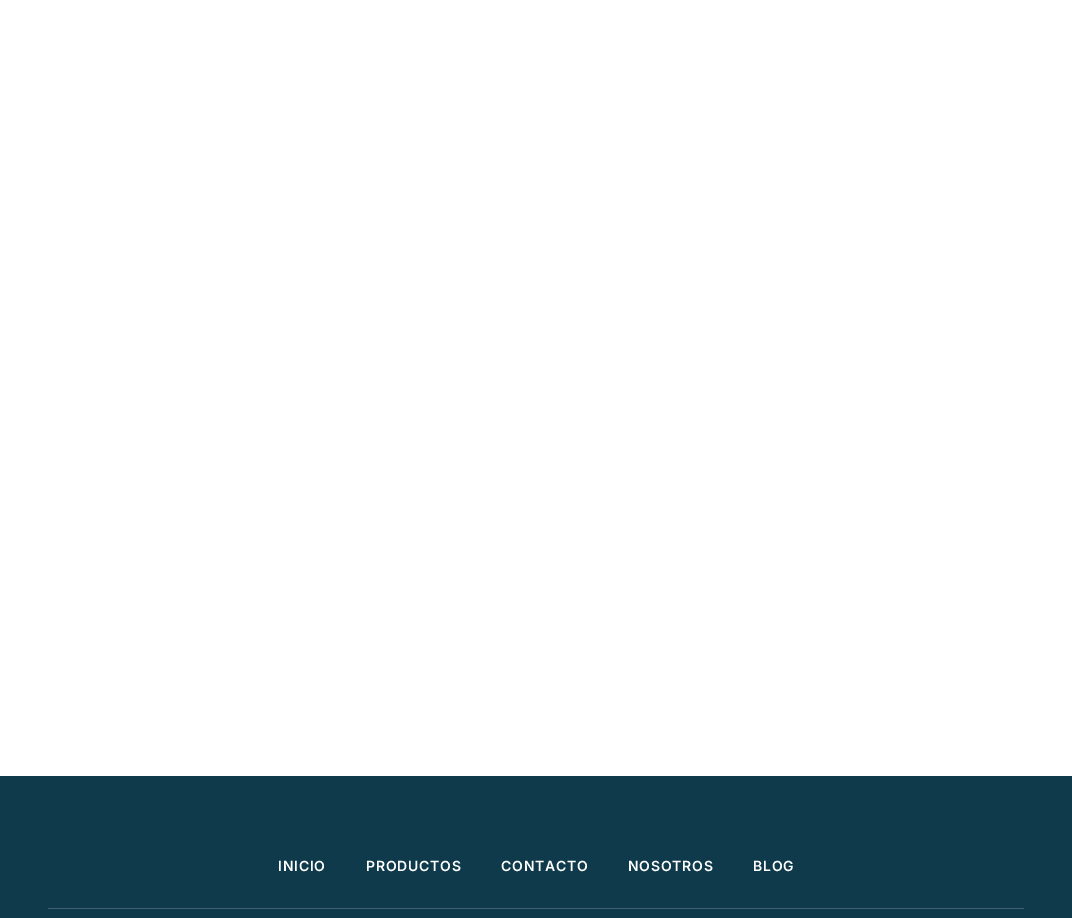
%!PS
<< /PageSize [1072 918] >> setpagedevice
/rgb { 3 { 255 div 3 1 roll } repeat setrgbcolor } def
/font { [ exch dup neg 0 0 3 -1 roll 0 0 ] selectfont } def
0 918 translate 1 -1 scale
4 setmiterlimit
255 255 255 rgb
0 0 1072 918 rectfill
15 58 75 rgb
0 776 1072 142 rectfill
63 97 111 rgb
48 908 976 1 rectfill
/Inter-SemiBold 14 font
255 255 255 rgb
278 871 moveto 0.75 0 (INICIO) ashow
366 871 moveto 0.75 0 (PRODUCTOS) ashow
501 871 moveto 0.75 0 (CONTACTO) ashow
628 871 moveto 0.75 0 (NOSOTROS) ashow
753 871 moveto 0.75 0 (BLOG) ashow
showpage
